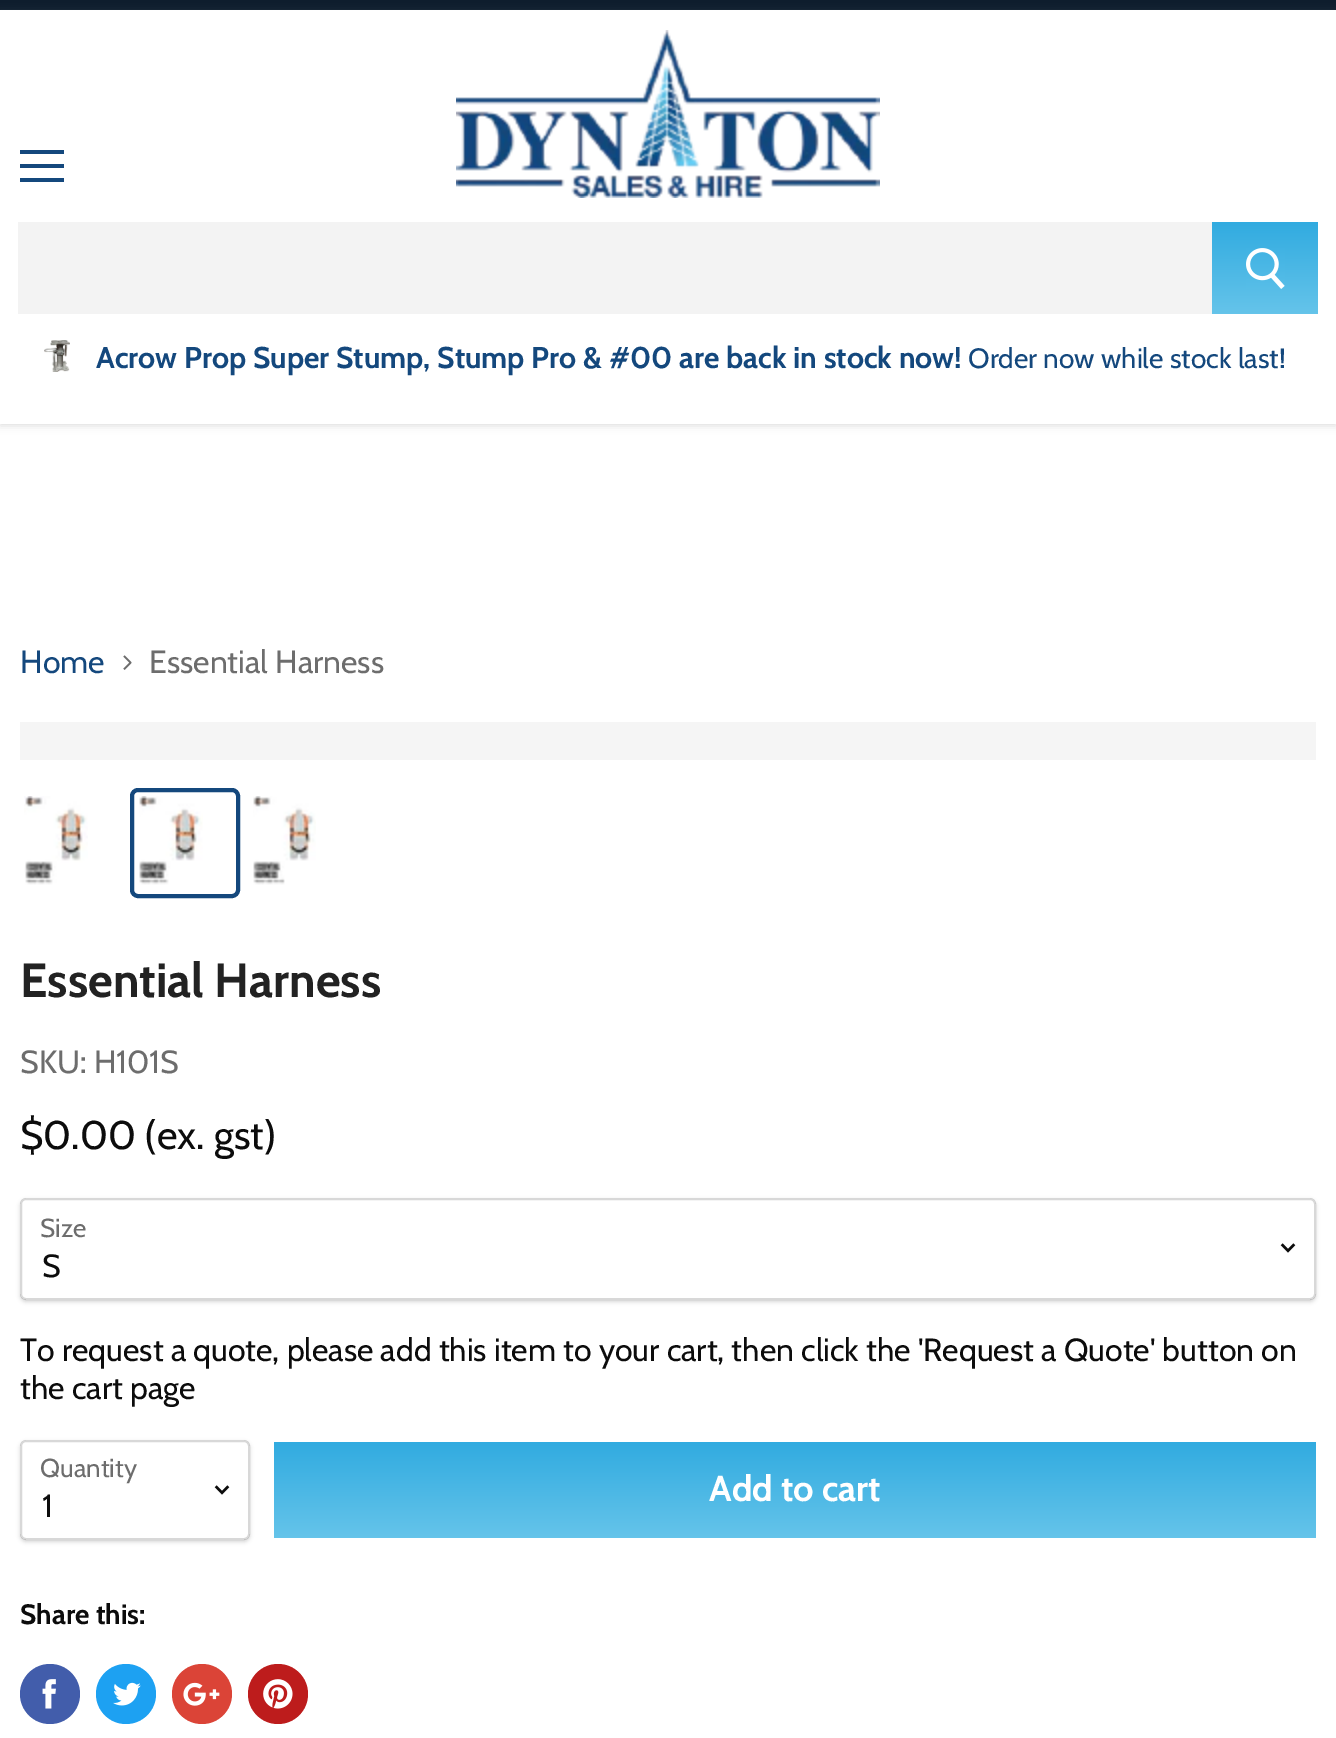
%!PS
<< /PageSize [1336 1738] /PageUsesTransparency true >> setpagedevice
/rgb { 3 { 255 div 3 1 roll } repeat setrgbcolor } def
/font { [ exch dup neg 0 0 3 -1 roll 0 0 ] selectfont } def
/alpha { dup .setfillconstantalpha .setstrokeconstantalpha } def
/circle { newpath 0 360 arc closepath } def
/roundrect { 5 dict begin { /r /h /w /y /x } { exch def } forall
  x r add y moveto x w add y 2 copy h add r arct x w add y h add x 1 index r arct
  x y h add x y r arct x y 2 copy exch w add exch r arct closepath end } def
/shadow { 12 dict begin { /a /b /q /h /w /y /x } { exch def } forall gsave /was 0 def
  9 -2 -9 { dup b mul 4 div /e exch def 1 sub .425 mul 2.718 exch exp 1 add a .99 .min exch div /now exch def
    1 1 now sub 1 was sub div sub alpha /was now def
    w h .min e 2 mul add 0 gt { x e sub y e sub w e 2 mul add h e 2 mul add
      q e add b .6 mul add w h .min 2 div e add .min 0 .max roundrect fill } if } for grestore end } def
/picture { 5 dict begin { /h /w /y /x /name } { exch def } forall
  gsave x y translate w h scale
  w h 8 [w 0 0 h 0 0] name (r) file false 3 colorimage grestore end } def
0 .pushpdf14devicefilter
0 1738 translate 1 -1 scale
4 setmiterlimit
255 255 255 rgb
0 0 1336 1738 rectfill
14 29 45 rgb
0 0 1336 10 rectfill
gsave
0 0 moveto 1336 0 lineto 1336 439 lineto 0 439 lineto closepath 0 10 moveto 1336 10 lineto 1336 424 lineto 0 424 lineto closepath eoclip newpath
127 127 127 rgb
0 12 1336 414 0 4 0.25 shadow
grestore
[
  [20 150 44 4 20 72 125]
  [20 164 44 4 20 72 125]
  [20 178 44 4 20 72 125]
] { aload pop rgb rectfill } forall
(img/1.rgb) 456 30 424 168 picture
243 243 243 rgb
18 222 1194 92 rectfill
gsave 1212 222 moveto 1318 222 lineto 1318 314 lineto 1212 314 lineto closepath clip newpath
<< /ShadingType 2 /ColorSpace /DeviceRGB /Coords [1265 222 1265 314] /Extend [true true] /Function << /FunctionType 2 /Domain [0 1] /C0 [0.192 0.671 0.878] /C1 [0.396 0.769 0.918] /N 1 >> >> shfill grestore
(img/2.rgb) 1246 248 39 41 picture
(img/3.rgb) 44 340 26 32 picture
(img/4.rgb) 123 655 9 15 picture
245 245 245 rgb
20 722 1296 38 rectfill
(img/5.rgb) 24 796 64 89 picture
20 72 125 rgb
4 setlinewidth
132 790 106 106 6 roundrect stroke
(img/6.rgb) 139 796 64 89 picture
(img/7.rgb) 253 796 63 89 picture
gsave
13 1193 moveto 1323 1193 lineto 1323 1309 lineto 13 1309 lineto closepath 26 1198 moveto 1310 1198 lineto 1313.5 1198 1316 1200.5 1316 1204 curveto 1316 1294 lineto 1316 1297.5 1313.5 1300 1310 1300 curveto 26 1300 lineto 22.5 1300 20 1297.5 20 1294 curveto 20 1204 lineto 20 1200.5 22.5 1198 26 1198 curveto closepath eoclip newpath
0 0 0 rgb
20 1200 1296 102 6 2 0.15 shadow
grestore
0.3 alpha
127 127 127 rgb
2 setlinewidth
21 1199 1294 100 5 roundrect stroke
1 alpha
(img/8.rgb) 1280 1243 16 10 picture
gsave
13 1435 moveto 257 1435 lineto 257 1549 lineto 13 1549 lineto closepath 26 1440 moveto 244 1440 lineto 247.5 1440 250 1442.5 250 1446 curveto 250 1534 lineto 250 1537.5 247.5 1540 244 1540 curveto 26 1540 lineto 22.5 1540 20 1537.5 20 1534 curveto 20 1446 lineto 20 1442.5 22.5 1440 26 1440 curveto closepath eoclip newpath
0 0 0 rgb
20 1442 230 100 6 2 0.15 shadow
grestore
0.3 alpha
21 1441 228 98 5 roundrect stroke
1 alpha
(img/8.rgb) 214 1485 16 10 picture
gsave 274 1442 moveto 1316 1442 lineto 1316 1538 lineto 274 1538 lineto closepath clip newpath
<< /ShadingType 2 /ColorSpace /DeviceRGB /Coords [795 1442 795 1538] /Extend [true true] /Function << /FunctionType 2 /Domain [0 1] /C0 [0.192 0.671 0.878] /C1 [0.396 0.769 0.918] /N 1 >> >> shfill grestore
66 93 171 rgb
50 1694 30 circle fill
(img/9.rgb) 42 1679 14 30 picture
29 161 242 rgb
126 1694 30 circle fill
(img/10.rgb) 113 1682 28 24 picture
219 68 55 rgb
202 1694 30 circle fill
(img/11.rgb) 183 1682 37 24 picture
189 28 28 rgb
278 1694 30 circle fill
(img/12.rgb) 263 1679 30 30 picture
/Cabin-Bold 30 font
20 72 125 rgb
96 368 moveto (Acrow Prop Super Stump, Stump Pro & #00 are back in stock now!) show
/Cabin-Regular 28 font
968 368 moveto (Order now while stock last!) show
/Cabin-Regular 32 font
20 673 moveto (Home) show
109 109 109 rgb
149 673 moveto (Essential Harness) show
/Cabin-Bold 48 font
34 34 34 rgb
20 997 moveto (Essential Harness) show
/Cabin-Regular 32 font
109 109 109 rgb
20 1073 moveto (SKU: H101S) show
/Cabin-Regular 40 font
12 12 12 rgb
20 1149 moveto ($0.00 \(ex. gst\)) show
/Cabin-Regular 26 font
109 109 109 rgb
40 1237 moveto (Size) show
/Cabin-Regular 32 font
12 12 12 rgb
[
  [(S) 42 1277]
  [(To request a quote, please add this item to your cart, then click the 'Request a Quote' button on) 20 1361]
  [(the cart page) 20 1399]
] { aload pop moveto show } forall
/Cabin-Regular 26 font
109 109 109 rgb
40 1477 moveto (Quantity) show
/Cabin-Regular 32 font
12 12 12 rgb
42 1517 moveto (1) show
/Cabin-Bold 36 font
255 255 255 rgb
709 1501 moveto (Add to cart) show
/Cabin-Bold 28 font
12 12 12 rgb
20 1624 moveto (Share this:) show
.poppdf14devicefilter showpage
